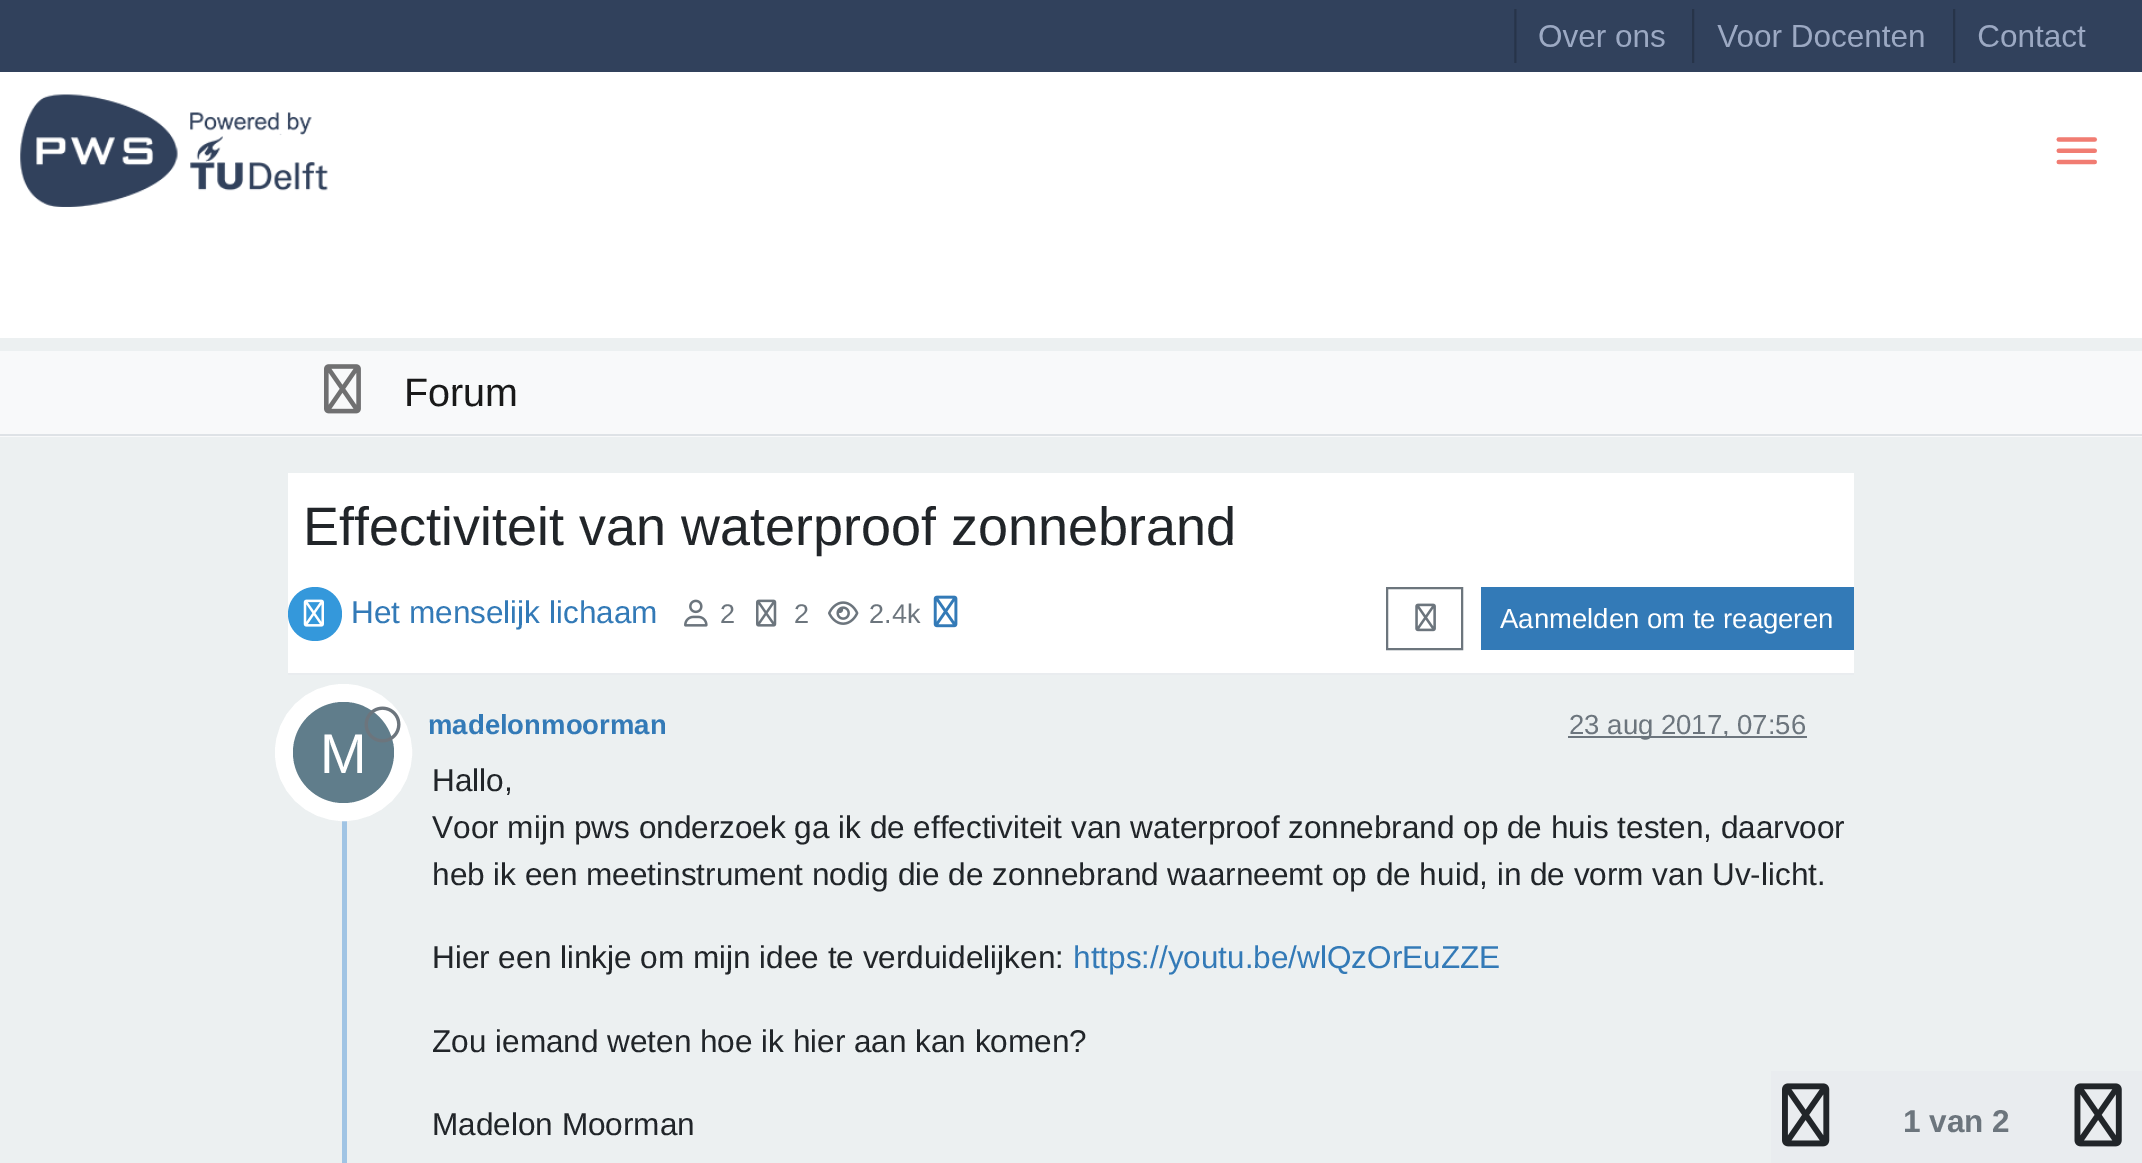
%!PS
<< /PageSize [2142 1163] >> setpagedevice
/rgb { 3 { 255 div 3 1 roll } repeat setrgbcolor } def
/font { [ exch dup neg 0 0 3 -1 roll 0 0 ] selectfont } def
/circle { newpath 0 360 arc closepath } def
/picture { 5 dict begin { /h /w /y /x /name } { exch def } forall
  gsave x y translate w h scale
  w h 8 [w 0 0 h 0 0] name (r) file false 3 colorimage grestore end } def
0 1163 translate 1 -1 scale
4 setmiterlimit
236 240 241 rgb
0 0 2142 1163 rectfill
(img/1.rgb) 0 0 2142 207 picture
[
  [0 207 2142 131 255 255 255]
  [0 351 2142 86 248 249 250]
  [0 434 2142 2 222 226 230]
] { aload pop rgb rectfill } forall
(img/2.rgb) 324 364 37 50 picture
255 255 255 rgb
288 473 1566 200 rectfill
233 236 239 rgb
288 673 1566 2 rectfill
52 152 219 rgb
315 614 27 circle fill
(img/3.rgb) 303 599 21 28 picture
(img/4.rgb) 684 599 24 28 picture
(img/5.rgb) 756 599 21 28 picture
(img/6.rgb) 828 601 31 24 picture
(img/7.rgb) 933 595 25 33 picture
108 117 125 rgb
2 setlinewidth
1387 588 75 61 rectstroke
(img/8.rgb) 1415 603 21 29 picture
[
  [1481 587 373 63 51 122 183]
  [342 698 5 465 160 196 228]
  [1568 736 239 2 108 117 125]
] { aload pop rgb rectfill } forall
255 255 255 rgb
18 setlinewidth
343.5 752.5 59.5 circle stroke
96 125 139 rgb
343.5 752.5 50.5 circle fill
(img/9.rgb) 364 706 37 37 picture
233 236 239 rgb
1771 1071 371 92 rectfill
(img/10.rgb) 1782 1083 48 64 picture
(img/11.rgb) 2074 1083 48 64 picture
/LiberationSans-Regular 39.5 font
25 25 25 rgb
404 406 moveto (Forum) show
/LiberationSans-Regular 54 font
33 37 41 rgb
303 545 moveto (Effectiviteit van waterproof zonnebrand) show
/LiberationSans-Regular 31.5 font
51 122 183 rgb
351 623 moveto (Het menselijk lichaam) show
/LiberationSans-Regular 27 font
108 117 125 rgb
[
  [(2) 720 623]
  [(2) 794 623]
  [(2.4k) 869 623]
] { aload pop moveto show } forall
/LiberationSans-Regular 27.5 font
255 255 255 rgb
1500 628 moveto (Aanmelden om te reageren) show
/LiberationSans-Bold 27.5 font
51 122 183 rgb
428 734 moveto (madelonmoorman) show
/LiberationSans-Regular 27.5 font
108 117 125 rgb
1569 734 moveto (23 aug 2017, 07:56) show
/LiberationSans-Regular 56 font
255 255 255 rgb
320 773 moveto (M) show
/LiberationSans-Regular 31.5 font
33 37 41 rgb
[
  [(Hallo,) 432 791]
  [(Voor mijn pws onderzoek ga ik de effectiviteit van waterproof zonnebrand op de huis testen, daarvoor) 432 838]
  [(heb ik een meetinstrument nodig die de zonnebrand waarneemt op de huid, in de vorm van Uv-licht.) 432 885]
  [(Hier een linkje om mijn idee te verduidelijken:) 432 968]
] { aload pop moveto show } forall
51 122 183 rgb
1073 968 moveto (https://youtu.be/wlQzOrEuZZE) show
33 37 41 rgb
432 1052 moveto (Zou iemand weten hoe ik hier aan kan komen?) show
432 1135 moveto (Madelon Moorman) show
/LiberationSans-Bold 31.5 font
108 117 125 rgb
1903 1132 moveto (1 van 2) show
showpage
